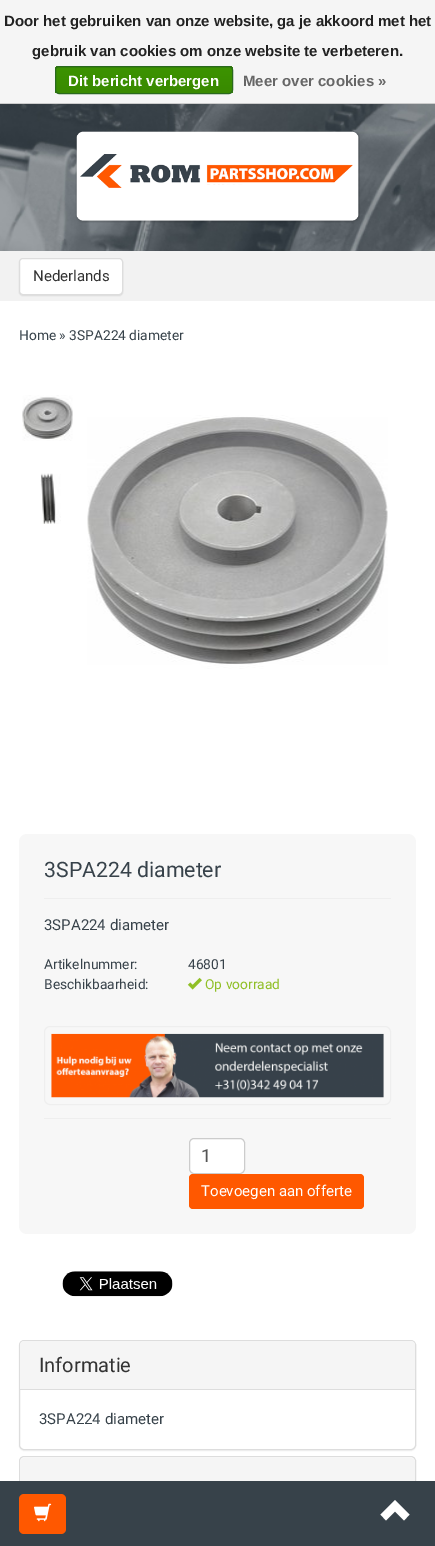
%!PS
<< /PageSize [435 1546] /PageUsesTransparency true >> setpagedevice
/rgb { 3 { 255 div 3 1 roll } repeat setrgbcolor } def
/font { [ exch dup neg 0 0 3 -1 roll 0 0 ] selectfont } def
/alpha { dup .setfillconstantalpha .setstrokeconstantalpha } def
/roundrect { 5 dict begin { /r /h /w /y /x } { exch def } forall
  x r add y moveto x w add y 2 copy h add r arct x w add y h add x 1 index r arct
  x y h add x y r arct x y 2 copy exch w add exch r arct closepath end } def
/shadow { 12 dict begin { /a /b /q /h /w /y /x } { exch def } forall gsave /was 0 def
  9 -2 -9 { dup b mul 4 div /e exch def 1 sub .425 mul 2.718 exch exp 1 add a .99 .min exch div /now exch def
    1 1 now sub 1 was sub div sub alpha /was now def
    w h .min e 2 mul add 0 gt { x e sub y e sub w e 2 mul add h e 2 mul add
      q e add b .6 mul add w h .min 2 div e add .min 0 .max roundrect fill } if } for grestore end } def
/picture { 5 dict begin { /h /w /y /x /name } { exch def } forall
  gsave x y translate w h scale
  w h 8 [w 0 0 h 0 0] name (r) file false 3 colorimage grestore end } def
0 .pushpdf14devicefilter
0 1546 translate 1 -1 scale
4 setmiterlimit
255 255 255 rgb
0 0 435 1546 rectfill
245 245 245 rgb
0 0 435 103 rectfill
204 204 204 rgb
0 103 435 1 rectfill
gsave
55 66 178 28 4 roundrect clip newpath
gsave 55 66 moveto 233 66 lineto 233 68 lineto 55 68 lineto closepath clip newpath
<< /ShadingType 2 /ColorSpace /DeviceRGB /Coords [144 42 144 68] /Extend [true true] /Function << /FunctionType 2 /Domain [0 1] /C0 [0.235 0.576 0] /C1 [0.224 0.541 0] /N 1 >> >> shfill grestore
gsave 55 68 moveto 233 68 lineto 233 93 lineto 55 93 lineto closepath clip newpath
<< /ShadingType 2 /ColorSpace /DeviceRGB /Coords [144 67 144 93] /Extend [true true] /Function << /FunctionType 2 /Domain [0 1] /C0 [0.235 0.576 0] /C1 [0.224 0.541 0] /N 1 >> >> shfill grestore
grestore
41 105 29 rgb
55.5 66.5 177 27 3.5 roundrect stroke
(img/1.rgb) 0 104 435 147 picture
(img/2.rgb) 75 131 285 92 picture
242 242 242 rgb
0 251 435 50 rectfill
34 25 25 rgb
19 259 104 37 4 0.5 0.1 shadow
255 255 255 rgb
19.5 258.5 103 36 3.5 roundrect gsave fill grestore
221 221 221 rgb
stroke
(img/3.rgb) 22 395 51 46 picture
(img/4.rgb) 40 473 21 51 picture
(img/5.rgb) 87 415 301 254 picture
247 247 247 rgb
19 834 397 400 8 roundrect fill
238 238 238 rgb
44 898 347 1 rectfill
(img/6.rgb) 187 977 15 13 picture
44.5 1026.5 346 78 5.5 roundrect stroke
(img/7.rgb) 51 1033 333 65 picture
44 1118 347 1 rectfill
255 255 255 rgb
189.5 1138.5 55 35 4.5 roundrect gsave fill grestore
204 204 204 rgb
stroke
255 88 0 rgb
189 1174 175 35 4 roundrect fill
(img/8.rgb) 62 1271 111 26 picture
0 0 0 rgb
19 1341 397 110 5 0.5 0.05 shadow
255 255 255 rgb
19.5 1340.5 396 109 4.5 roundrect gsave fill grestore
221 221 221 rgb
stroke
245 245 245 rgb
24 1341 moveto 411 1341 lineto 413 1341 415 1343 415 1345 curveto 415 1389 lineto 20 1389 lineto 20 1345 lineto 20 1343 22 1341 24 1341 curveto closepath fill
221 221 221 rgb
20 1389 395 1 rectfill
19.5 1456.5 396 49 4.5 roundrect stroke
245 245 245 rgb
24 1458 moveto 411 1458 lineto 413 1458 415 1460 415 1462 curveto 415 1505 lineto 20 1505 lineto 20 1462 lineto 20 1460 22 1458 24 1458 curveto closepath fill
55 66 74 rgb
0 1481 435 65 rectfill
255 88 0 rgb
19 1494 47 40 5 roundrect fill
(img/9.rgb) 34 1503 18 19 picture
255 255 255 rgb
380.5 1514.5 moveto 386 1520.5 lineto 395 1511.5 lineto 404 1520.5 lineto 409.5 1514.5 lineto 395 1500 lineto closepath fill
/LiberationSans-Bold 15 font
34 34 34 rgb
4 26 moveto (Door het gebruiken van onze website, ga je akkoord met het) show
32 56 moveto (gebruik van cookies om onze website te verbeteren.) show
255 255 255 rgb
68 86 moveto (Dit bericht verbergen) show
102 102 102 rgb
243 86 moveto (Meer over cookies ») show
/Roboto-Regular 15 font
51 51 51 rgb
33 281 moveto (Nederlands) show
/Roboto-Regular 13.75 font
55 66 74 rgb
19 340 moveto (Home » 3SPA224 diameter) show
/Roboto-Regular 21.25 font
44 877 moveto (3SPA224 diameter) show
/Roboto-Regular 15 font
44 930 moveto (3SPA224 diameter) show
/Roboto-Regular 13.75 font
[
  [(Artikelnummer:) 44 969]
  [(46801) 188 969]
  [(Beschikbaarheid:) 44 989]
] { aload pop moveto show } forall
144 191 38 rgb
205 989 moveto (Op voorraad) show
/Roboto-Regular 18 font
85 85 85 rgb
201 1162 moveto (1) show
/Roboto-Regular 15 font
255 255 255 rgb
201 1196 moveto (Toevoegen aan offerte) show
/Roboto-Regular 20 font
51 51 51 rgb
39 1372 moveto (Informatie) show
/Roboto-Regular 15 font
55 66 74 rgb
39 1424 moveto (3SPA224 diameter) show
.poppdf14devicefilter showpage
